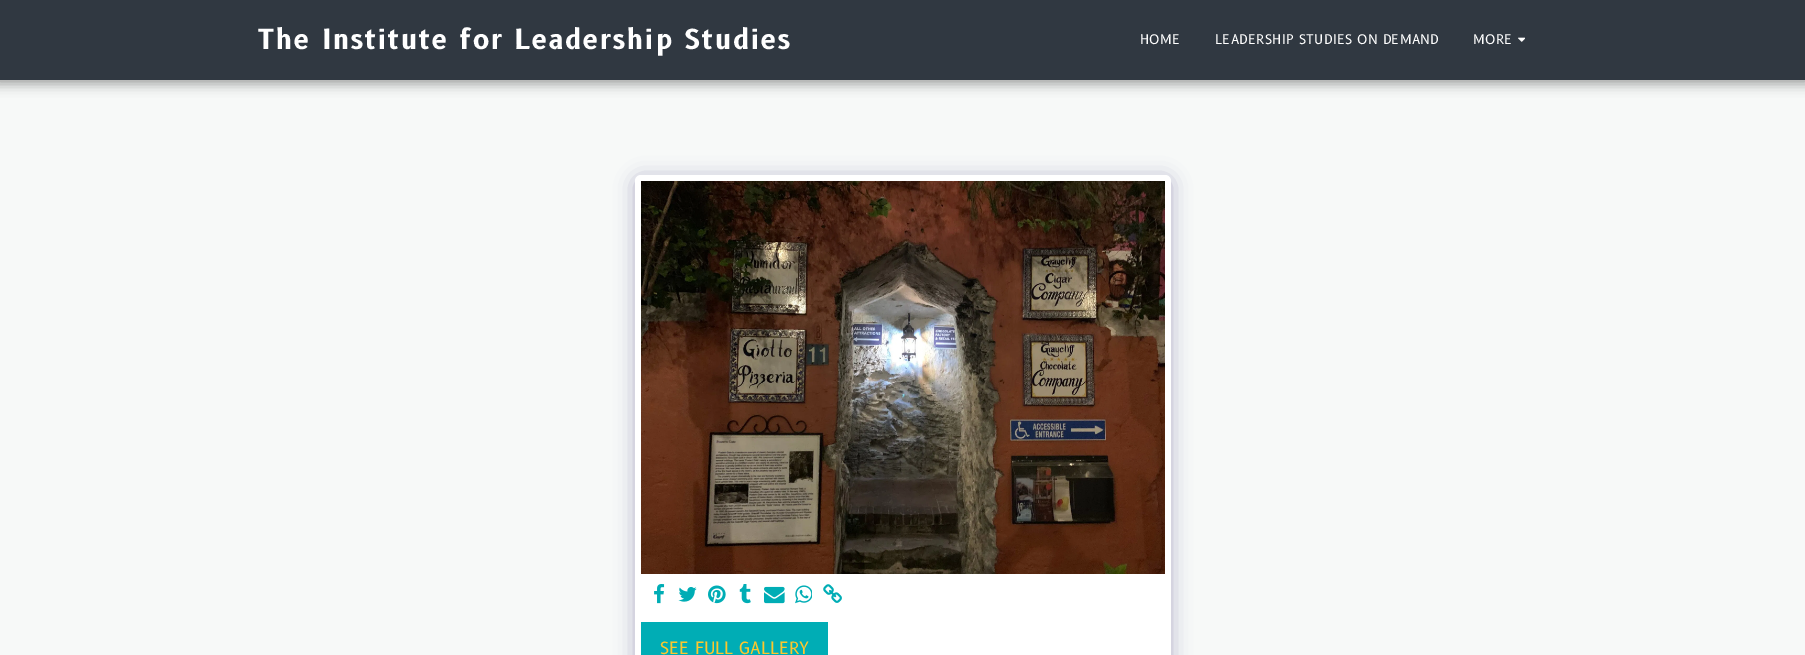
%!PS
<< /PageSize [1805 655] /PageUsesTransparency true >> setpagedevice
/rgb { 3 { 255 div 3 1 roll } repeat setrgbcolor } def
/font { [ exch dup neg 0 0 3 -1 roll 0 0 ] selectfont } def
/alpha { dup .setfillconstantalpha .setstrokeconstantalpha } def
/roundrect { 5 dict begin { /r /h /w /y /x } { exch def } forall
  x r add y moveto x w add y 2 copy h add r arct x w add y h add x 1 index r arct
  x y h add x y r arct x y 2 copy exch w add exch r arct closepath end } def
/shadow { 12 dict begin { /a /b /q /h /w /y /x } { exch def } forall gsave /was 0 def
  9 -2 -9 { dup b mul 4 div /e exch def 1 sub .425 mul 2.718 exch exp 1 add a .99 .min exch div /now exch def
    1 1 now sub 1 was sub div sub alpha /was now def
    w h .min e 2 mul add 0 gt { x e sub y e sub w e 2 mul add h e 2 mul add
      q e add b .6 mul add w h .min 2 div e add .min 0 .max roundrect fill } if } for grestore end } def
/picture { 5 dict begin { /h /w /y /x /name } { exch def } forall
  gsave x y translate w h scale
  w h 8 [w 0 0 h 0 0] name (r) file false 3 colorimage grestore end } def
0 .pushpdf14devicefilter
0 655 translate 1 -1 scale
4 setmiterlimit
247 249 248 rgb
0 0 1805 655 rectfill
0 0 0 rgb
-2 0 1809 84 0 6 0.35 shadow
48 56 65 rgb
0 0 1805 80 rectfill
(img/1.rgb) 1518 37 7 5 picture
77 63 122 rgb
635 178 536 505 6 10 0.4 shadow
255 255 255 rgb
635 175 536 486 6 roundrect fill
(img/2.rgb) 641 181 524 393 picture
(img/3.rgb) 654 584 11 20 picture
(img/4.rgb) 678 587 19 15 picture
(img/5.rgb) 708 585 18 19 picture
(img/6.rgb) 739 584 12 20 picture
(img/7.rgb) 764 586 21 18 picture
(img/8.rgb) 795 585 17 19 picture
(img/9.rgb) 823 584 19 19 picture
0 173 181 rgb
641 622 187 33 rectfill
/B612-Bold 27 font
255 255 255 rgb
258 49 moveto 2 0 (The Institute for Leadership Studies) ashow
/B612-Regular 13 font
1140 44 moveto 0.3 0 (HOME) ashow
1215 44 moveto 0.3 0 (LEADERSHIP STUDIES ON DEMAND) ashow
1473 44 moveto 0.3 0 (MORE) ashow
/B612-Regular 16.5 font
255 199 44 rgb
660 654 moveto (SEE FULL GALLERY) show
.poppdf14devicefilter showpage
